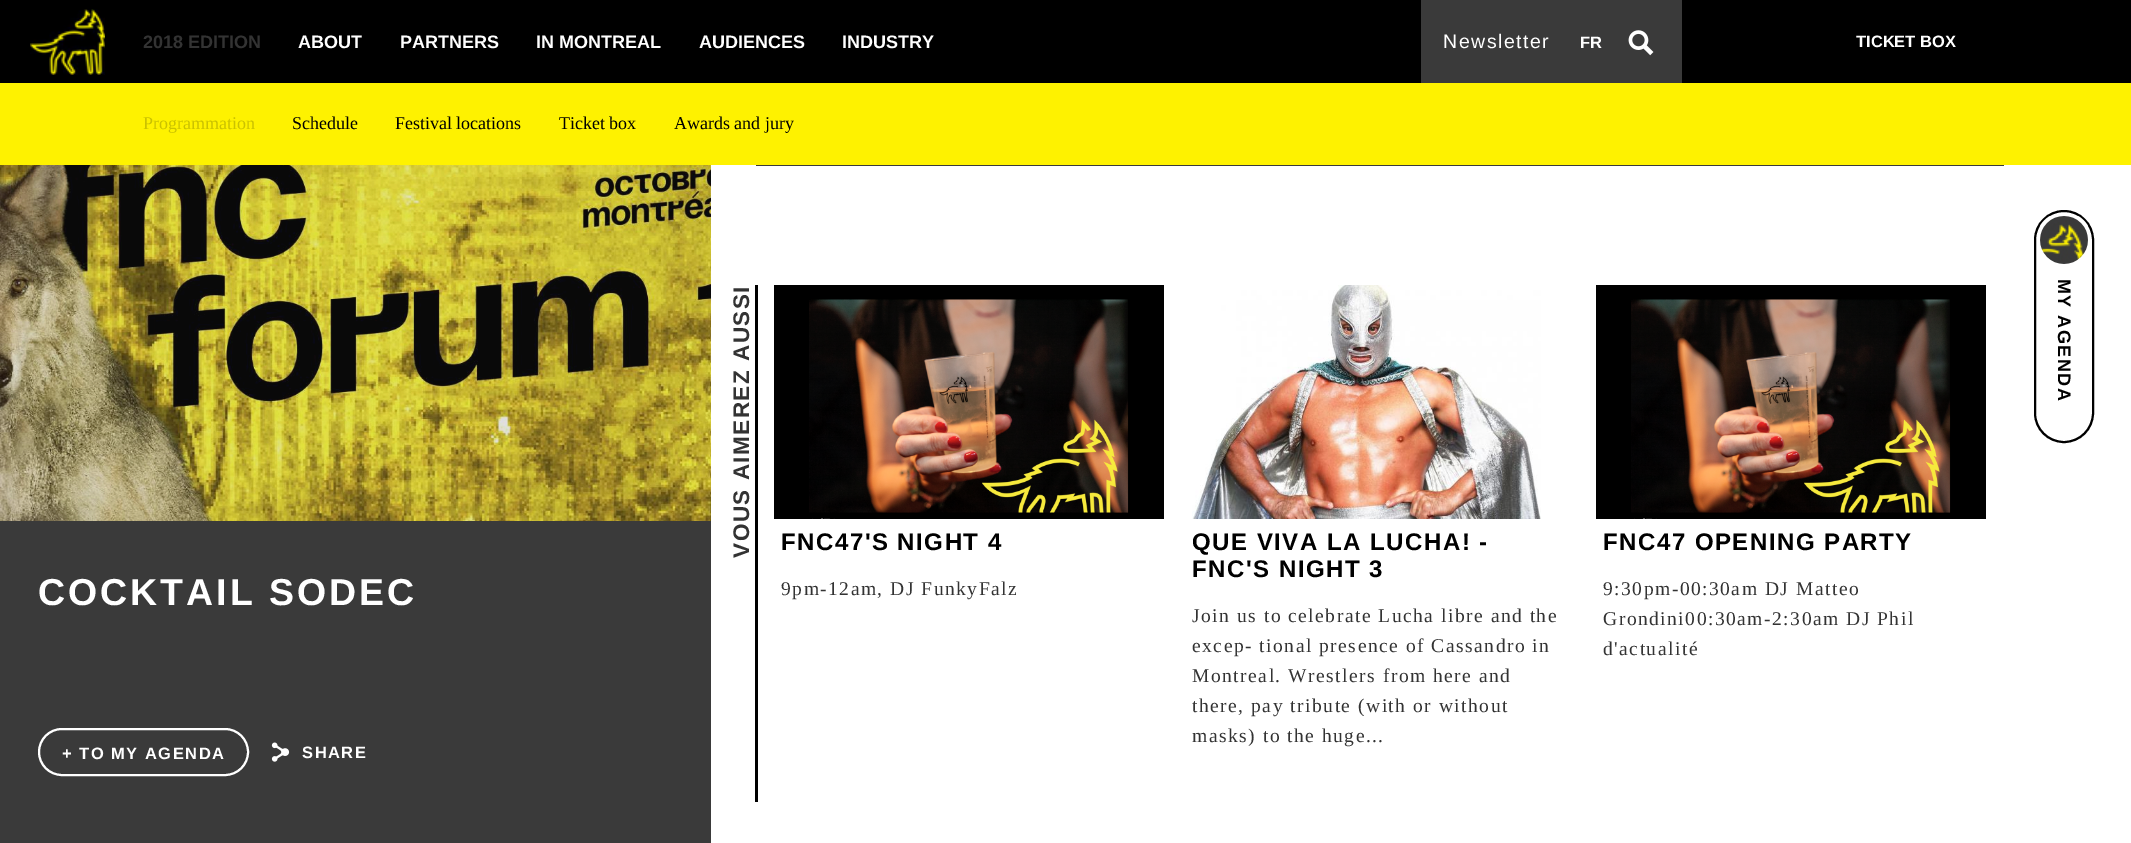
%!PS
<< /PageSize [2131 843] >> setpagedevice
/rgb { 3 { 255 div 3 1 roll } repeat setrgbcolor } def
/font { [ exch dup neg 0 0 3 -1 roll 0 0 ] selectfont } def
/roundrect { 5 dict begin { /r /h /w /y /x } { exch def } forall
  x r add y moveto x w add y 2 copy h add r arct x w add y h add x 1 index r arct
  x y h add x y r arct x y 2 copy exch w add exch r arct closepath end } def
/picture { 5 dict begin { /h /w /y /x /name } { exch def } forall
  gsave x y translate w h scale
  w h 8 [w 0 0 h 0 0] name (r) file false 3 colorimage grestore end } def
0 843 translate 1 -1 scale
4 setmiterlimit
255 255 255 rgb
0 0 2131 843 rectfill
0 0 0 rgb
0 0 2131 83 rectfill
(img/1.rgb) 30 9 75 66 picture
58 58 58 rgb
1421 0 261 83 rectfill
(img/2.rgb) 1628 30 26 26 picture
[
  [0 83 2131 82 254 242 0]
  [0 165 711 678 58 58 58]
  [756 165 1248 1 58 58 58]
  [755 285 3 517 0 0 0]
] { aload pop rgb rectfill } forall
(img/3.rgb) 774 285 390 234 picture
(img/4.rgb) 1192 285 349 234 picture
(img/5.rgb) 1596 285 390 234 picture
2 setlinewidth
2035 211 58 231 29 roundrect stroke
(img/6.rgb) 2040 216 48 48 picture
(img/7.rgb) 0 165 711 356 picture
255 255 255 rgb
39 729 209 46 23 roundrect stroke
(img/8.rgb) 271 742 19 20 picture
/LiberationSans-Bold 18 font
51 51 51 rgb
143 48 moveto (2018 EDITION) show
/LiberationSerif-Regular 18 font
203 194 0 rgb
143 129 moveto (Programmation) show
0 0 0 rgb
[
  [(Schedule) 292 129]
  [(Festival locations) 395 129]
  [(Ticket box) 559 129]
  [(Awards and jury) 674 129]
] { aload pop moveto show } forall
/LiberationSans-Bold 18 font
255 255 255 rgb
[
  [(ABOUT) 298 48]
  [(PARTNERS) 400 48]
  [(IN MONTREAL) 536 48]
  [(AUDIENCES) 699 48]
  [(INDUSTRY) 842 48]
] { aload pop moveto show } forall
/LiberationSans-Bold 16.5 font
1580 48 moveto (FR) show
/LiberationSans-Regular 19.5 font
1443 48 moveto 1.5 0 (Newsletter) ashow
/LiberationSans-Bold 16.5 font
1856 47 moveto (TICKET BOX) show
/LiberationSans-Bold 22.5 font
51 51 51 rgb
gsave 749 558 translate -90 rotate 0 0 moveto 1.5 0 (VOUS AIMEREZ AUSSI) ashow grestore
/LiberationSans-Bold 24 font
0 0 0 rgb
781 550 moveto 1.5 0 (FNC47'S NIGHT 4) ashow
/LiberationSerif-Regular 19.5 font
51 51 51 rgb
781 595 moveto 1.5 0 (9pm-12am, DJ FunkyFalz) ashow
/LiberationSans-Bold 24 font
0 0 0 rgb
1192 550 moveto 1.5 0 (QUE VIVA LA LUCHA! -) ashow
1192 577 moveto 1.5 0 (FNC'S NIGHT 3) ashow
/LiberationSerif-Regular 19.5 font
51 51 51 rgb
1192 622 moveto 1.5 0 (Join us to celebrate Lucha libre and the) ashow
1192 652 moveto 1.5 0 (excep- tional presence of Cassandro in) ashow
1192 682 moveto 1.5 0 (Montreal. Wrestlers from here and) ashow
1192 712 moveto 1.5 0 (there, pay tribute \(with or without) ashow
1192 742 moveto 1.5 0 (masks\) to the huge...) ashow
/LiberationSans-Bold 24 font
0 0 0 rgb
1603 550 moveto 1.5 0 (FNC47 OPENING PARTY) ashow
/LiberationSerif-Regular 19.5 font
51 51 51 rgb
1603 595 moveto 1.5 0 (9:30pm-00:30am DJ Matteo) ashow
1603 625 moveto 1.5 0 (Grondini00:30am-2:30am DJ Phil) ashow
1603 655 moveto 1.5 0 (d'actualité) ashow
/LiberationSans-Bold 18 font
0 0 0 rgb
gsave 2058 279 translate 90 rotate 0 0 moveto 1.5 0 (MY AGENDA) ashow grestore
/LiberationSans-Bold 37.5 font
255 255 255 rgb
38 605 moveto 3 0 (COCKTAIL SODEC) ashow
/LiberationSans-Bold 16.5 font
62 759 moveto 1.5 0 (+ TO MY AGENDA) ashow
302 758 moveto 1.5 0 (SHARE) ashow
showpage
